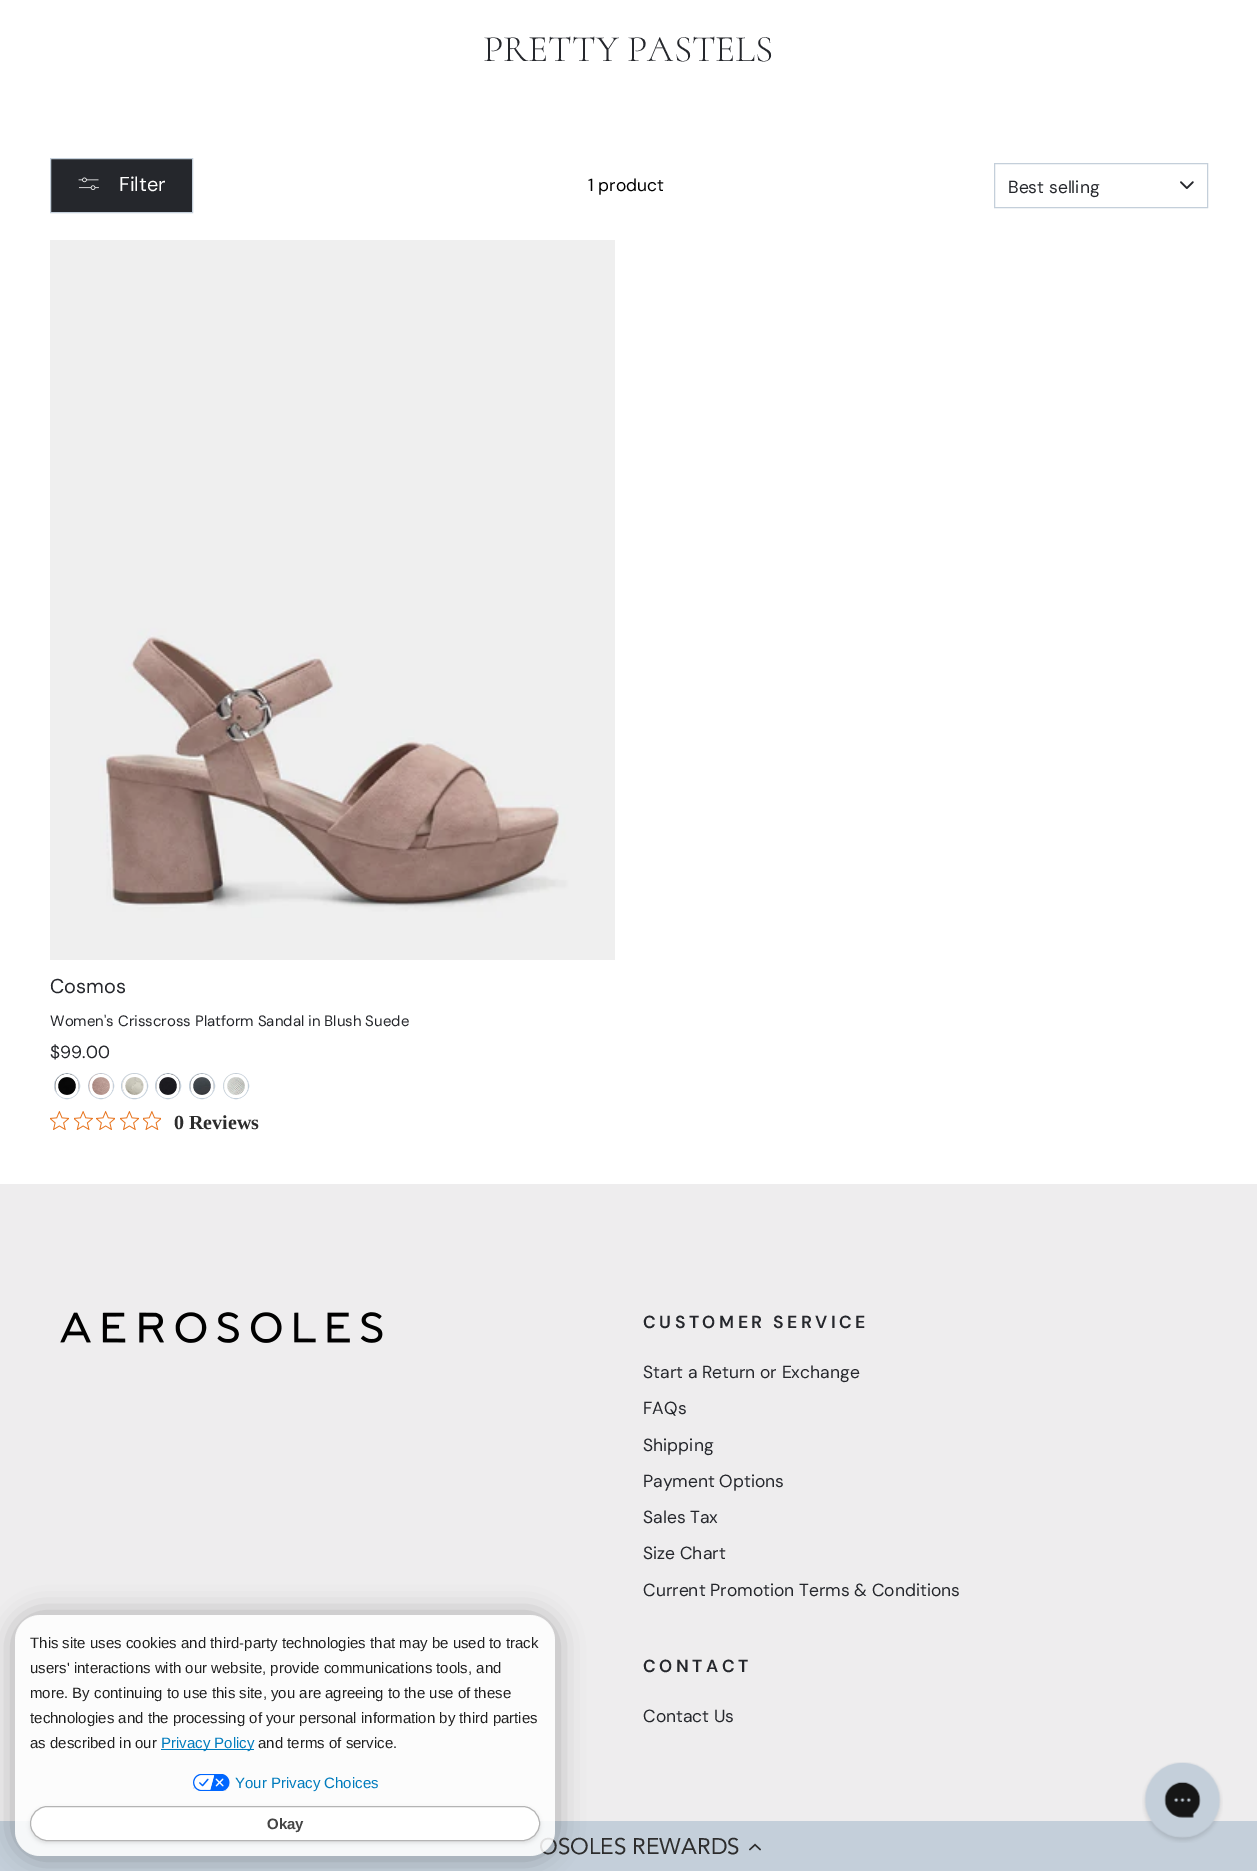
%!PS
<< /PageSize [1257 1871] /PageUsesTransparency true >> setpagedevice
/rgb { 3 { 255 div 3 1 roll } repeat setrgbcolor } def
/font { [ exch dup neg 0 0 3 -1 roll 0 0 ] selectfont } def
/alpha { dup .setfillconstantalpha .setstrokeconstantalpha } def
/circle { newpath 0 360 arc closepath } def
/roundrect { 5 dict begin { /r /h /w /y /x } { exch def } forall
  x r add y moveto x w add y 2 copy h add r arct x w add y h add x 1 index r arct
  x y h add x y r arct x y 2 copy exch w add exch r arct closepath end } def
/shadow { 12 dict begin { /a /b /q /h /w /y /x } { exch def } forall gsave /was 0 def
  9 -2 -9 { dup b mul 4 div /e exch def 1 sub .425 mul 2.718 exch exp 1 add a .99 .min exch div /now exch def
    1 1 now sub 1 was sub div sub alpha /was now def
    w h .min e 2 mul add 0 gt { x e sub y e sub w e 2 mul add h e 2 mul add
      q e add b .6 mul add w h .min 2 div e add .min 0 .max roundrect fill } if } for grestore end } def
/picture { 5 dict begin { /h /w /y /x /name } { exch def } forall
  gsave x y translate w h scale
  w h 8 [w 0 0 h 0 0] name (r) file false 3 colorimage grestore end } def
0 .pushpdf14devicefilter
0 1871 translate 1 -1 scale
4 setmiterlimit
255 255 255 rgb
0 0 1257 1871 rectfill
37 39 44 rgb
50.5 158.5 moveto 192.5 158.5 lineto 192.5 212.5 lineto 50.5 212.5 lineto closepath gsave fill grestore
196 207 218 rgb
stroke
(img/1.rgb) 78 177 21 13 picture
(img/2.rgb) 1180 181 14 8 picture
994.5 163.5 213 44 rectstroke
(img/3.rgb) 50 240 565 720 picture
67 1086 12.5 circle stroke
(img/4.rgb) 55 1073 24 25 picture
101 1086 12.5 circle stroke
(img/5.rgb) 88 1073 25 25 picture
255 255 255 rgb
67 1074 moveto 51.5 1074 51.5 1098 67 1098 curveto 82.5 1098 82.5 1074 67 1074 curveto closepath 67 1077 moveto 55 1077 55 1095 67 1095 curveto 79 1095 79 1077 67 1077 curveto closepath 101 1074 moveto 85.5 1074 85.5 1098 101 1098 curveto 116.5 1098 116.5 1074 101 1074 curveto closepath 101 1077 moveto 89 1077 89 1095 101 1095 curveto 113 1095 113 1077 101 1077 curveto closepath eofill
196 207 218 rgb
121.5 1073.5 26 25 12.5 roundrect stroke
(img/6.rgb) 122 1073 25 25 picture
168 1086 12.5 circle stroke
(img/7.rgb) 156 1073 24 25 picture
255 255 255 rgb
134.5 1074 moveto 119 1074 119 1098 134.5 1098 curveto 150 1098 150 1074 134.5 1074 curveto closepath 134 1077 moveto 122.5 1077 122 1094 134 1095 curveto 146.5 1096 147 1077 135 1077 curveto closepath 168 1074 moveto 152.5 1074 152.5 1098 168 1098 curveto 183.5 1098 183.5 1074 168 1074 curveto closepath 168 1077 moveto 156 1077 156 1095 168 1095 curveto 180 1095 180 1077 168 1077 curveto closepath eofill
196 207 218 rgb
202 1086 12.5 circle stroke
(img/8.rgb) 190 1073 24 25 picture
236 1086 12.5 circle stroke
(img/9.rgb) 223 1073 25 25 picture
255 255 255 rgb
202 1074 moveto 186.5 1074 186.5 1098 202 1098 curveto 217.5 1098 217.5 1074 202 1074 curveto closepath 202 1077 moveto 190 1077 190 1095 202 1095 curveto 214 1095 214 1077 202 1077 curveto closepath 236 1074 moveto 220.5 1074 220.5 1098 236 1098 curveto 251.5 1098 251.5 1074 236 1074 curveto closepath 236 1077 moveto 224 1077 224 1095 236 1095 curveto 248 1095 248 1077 236 1077 curveto closepath eofill
(img/10.rgb) 50 1111 19 19 picture
(img/11.rgb) 74 1111 19 19 picture
(img/12.rgb) 96 1111 19 19 picture
(img/10.rgb) 120 1111 19 19 picture
(img/13.rgb) 143 1111 18 19 picture
238 237 238 rgb
0 1184 1257 637 rectfill
(img/14.rgb) 60 1312 323 31 picture
196 207 218 rgb
0 1821 1257 50 rectfill
(img/15.rgb) 1142 1762 81 81 picture
(img/16.rgb) 749 1843 12 8 picture
gsave
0 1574 moveto 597 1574 lineto 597 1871 lineto 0 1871 lineto closepath 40 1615 moveto 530 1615 lineto 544 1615 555 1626 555 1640 curveto 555 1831 lineto 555 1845 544 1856 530 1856 curveto 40 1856 lineto 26 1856 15 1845 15 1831 curveto 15 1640 lineto 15 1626 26 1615 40 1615 curveto closepath eoclip newpath
0 0 0 rgb
13 1613 545 246 28 12.5 0.25 shadow
grestore
/Cormorant-Light 37.5 font
37 39 44 rgb
483 61 moveto (PRETTY PASTELS) show
/DMSans-Regular 20 font
255 255 255 rgb
119 191 moveto (Filter) show
/DMSans-Regular 17.5 font
0 0 0 rgb
588 191 moveto (1 product) show
37 39 44 rgb
1008 193 moveto (Best selling) show
/DMSans-Regular 20 font
50 993 moveto (Cosmos) show
/DMSans-Regular 15 font
50 1026 moveto (Women's Crisscross Platform Sandal in Blush Suede) show
/DMSans-Regular 17.5 font
50 1058 moveto ($99.00) show
/LiberationSerif-Bold 20 font
44 44 44 rgb
174 1129 moveto (0 Reviews) show
/DMSans-SemiBold 17.5 font
37 39 44 rgb
643 1328 moveto -1 0 32 3.5 0 (CUSTOMER SERVICE) awidthshow
/DMSans-Regular 17.5 font
[
  [(Start a Return or Exchange) 643 1378]
  [(FAQs) 643 1414]
  [(Shipping) 643 1451]
  [(Payment Options) 643 1487]
  [(Sales Tax) 643 1523]
  [(Size Chart) 643 1559]
  [(Current Promotion Terms & Conditions) 643 1596]
] { aload pop moveto show } forall
/DMSans-SemiBold 17.5 font
643 1672 moveto 3.5 0 (CONTACT) ashow
/DMSans-Regular 17.5 font
643 1722 moveto (Contact Us) show
/Avenir-Regular 22.5 font
44 44 44 rgb
539 1854 moveto (OSOLES REWARDS) show
0.85 alpha
255 255 255 rgb
15 1615 540 241 25 roundrect fill
/LiberationSans-Regular 15 font
1 alpha
33 33 33 rgb
[
  [(This site uses cookies and third-party technologies that may be used to track) 30 1648]
  [(users' interactions with our website, provide communications tools, and) 30 1673]
  [(more. By continuing to use this site, you are agreeing to the use of these) 30 1698]
  [(technologies and the processing of your personal information by third parties) 30 1723]
  [(as described in our) 30 1748]
] { aload pop moveto show } forall
0 123 189 rgb
161 1749 93 1 rectfill
161 1748 moveto (Privacy Policy) show
33 33 33 rgb
258 1748 moveto (and terms of service.) show
(img/17.rgb) 193 1774 37 17 picture
0 123 189 rgb
235 1788 moveto (Your Privacy Choices) show
0 0 0 rgb
30 1808 510 35 17.5 2 0.1 shadow
255 255 255 rgb
30.5 1806.5 509 34 17 roundrect gsave fill grestore
180 180 180 rgb
stroke
/LiberationSans-Bold 15 font
68 68 68 rgb
267 1829 moveto (Okay) show
.poppdf14devicefilter showpage
